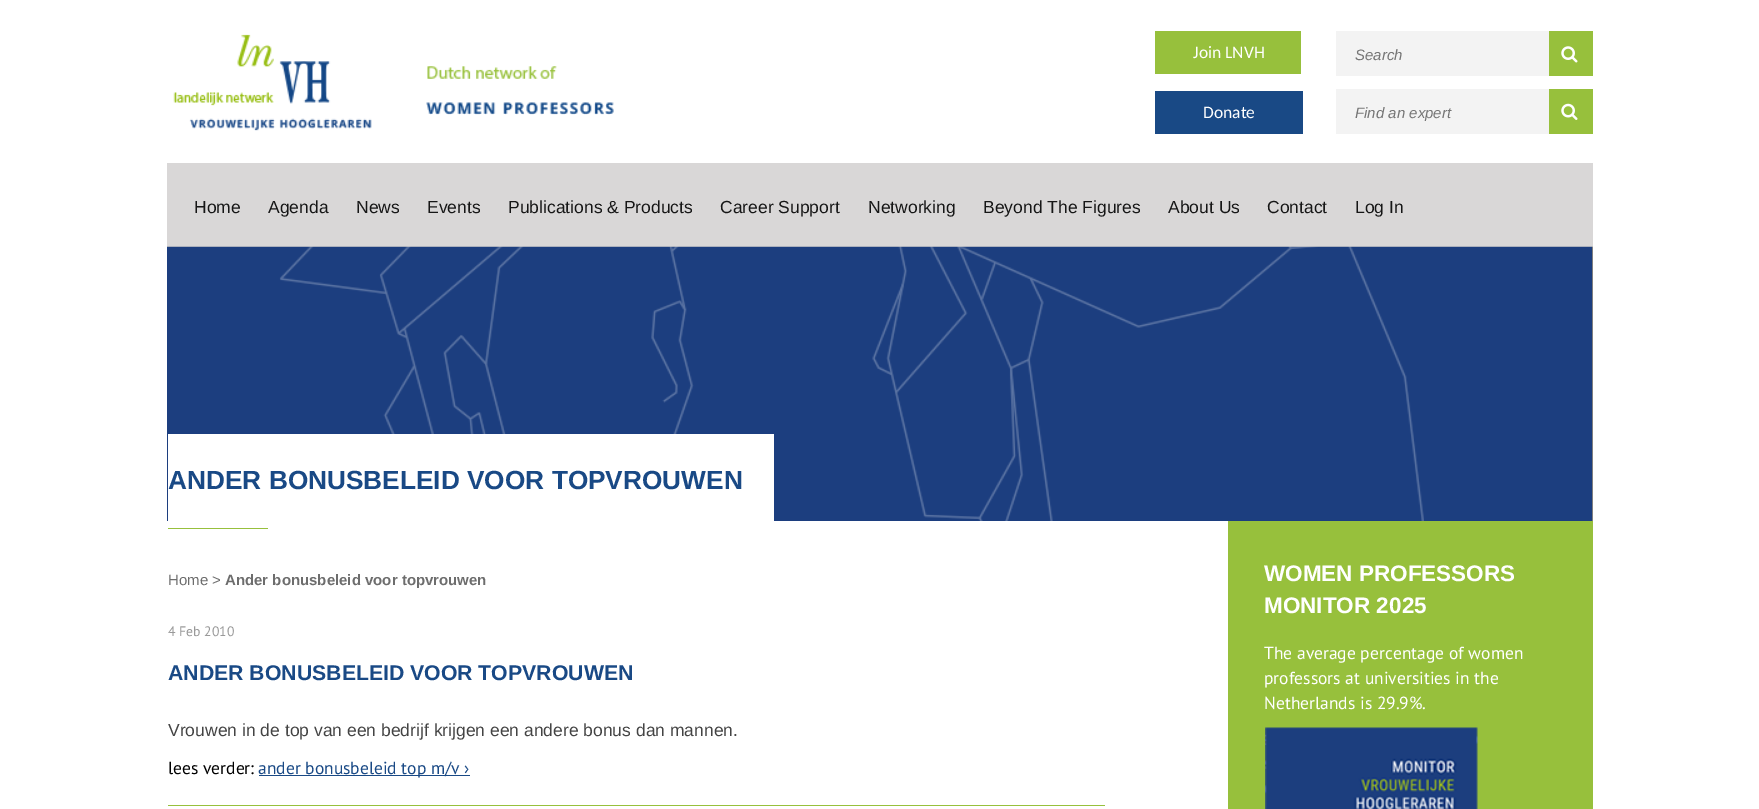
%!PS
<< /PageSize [1759 809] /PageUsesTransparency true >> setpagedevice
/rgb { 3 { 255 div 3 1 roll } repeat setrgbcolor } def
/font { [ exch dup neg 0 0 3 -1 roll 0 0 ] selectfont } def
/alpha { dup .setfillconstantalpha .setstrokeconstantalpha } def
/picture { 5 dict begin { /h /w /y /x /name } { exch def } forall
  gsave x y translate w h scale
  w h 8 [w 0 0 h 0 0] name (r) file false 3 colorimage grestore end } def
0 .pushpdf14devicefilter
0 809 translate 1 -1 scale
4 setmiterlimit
255 255 255 rgb
0 0 1759 809 rectfill
(img/1.rgb) 173 34 199 97 picture
(img/2.rgb) 426 66 188 49 picture
[
  [1155 31 146 43 151 192 60]
  [1155 91 148 43 25 73 133]
  [1336 31 213 45 243 243 243]
  [1549 31 44 45 151 192 60]
] { aload pop rgb rectfill } forall
(img/3.rgb) 1561 46 17 17 picture
243 243 243 rgb
1336 89 213 45 rectfill
151 192 60 rgb
1549 89 44 45 rectfill
(img/4.rgb) 1561 103 17 17 picture
128 128 128 rgb
1592 246 1 275 rectfill
(img/5.rgb) 167 246 1425 275 picture
0.8 alpha
[
  [167 163 1426 84 207 205 205]
] { aload pop rgb rectfill } forall
1 alpha
[
  [168 434 606 87 255 255 255]
  [168 528 100 1 151 192 60]
  [259 775 201 1 25 73 133]
  [460 775 10 1 25 73 133]
  [168 805 937 1 151 192 60]
  [1228 521 365 288 151 192 60]
] { aload pop rgb rectfill } forall
(img/6.rgb) 1265 727 213 82 picture
/Carlito-Regular 17.5 font
255 255 255 rgb
1193 58 moveto (Join LNVH) show
1203 118 moveto (Donate) show
/LiberationSans-Italic 15 font
117 117 117 rgb
1355 60 moveto (Search) show
1355 118 moveto (Find an expert) show
/LiberationSans-Regular 17.5 font
22 22 22 rgb
[
  [(Home) 194 213]
  [(Agenda) 268 213]
  [(News) 356 213]
  [(Events) 427 213]
  [(Publications & Products) 508 213]
  [(Career Support) 720 213]
  [(Networking) 868 213]
  [(Beyond The Figures) 983 213]
  [(About Us) 1168 213]
  [(Contact) 1267 213]
  [(Log In) 1355 213]
] { aload pop moveto show } forall
/LiberationSans-Bold 26.25 font
25 73 133 rgb
168 489 moveto (ANDER BONUSBELEID VOOR TOPVROUWEN) show
/LiberationSans-Regular 15 font
109 109 109 rgb
168 585 moveto (Home >) show
/LiberationSans-Bold 15 font
225 585 moveto (Ander bonusbeleid voor topvrouwen) show
/PTSans-Regular 13.75 font
153 153 153 rgb
168 636 moveto (4 Feb 2010) show
/LiberationSans-Bold 21.25 font
25 73 133 rgb
168 680 moveto (ANDER BONUSBELEID VOOR TOPVROUWEN) show
/LiberationSans-Regular 17.5 font
68 68 68 rgb
168 736 moveto (Vrouwen in de top van een bedrijf krijgen een andere bonus dan mannen.) show
/PTSans-Regular 17.5 font
0 0 0 rgb
168 774 moveto (lees verder:) show
25 73 133 rgb
258 774 moveto (ander bonusbeleid top m/v ›) show
/LiberationSans-Bold 22.5 font
255 255 255 rgb
1264 581 moveto (WOMEN PROFESSORS) show
1264 613 moveto (MONITOR 2025) show
/PTSans-Regular 17.5 font
[
  [(The average percentage of women) 1264 659]
  [(professors at universities in the) 1264 684]
  [(Netherlands is 29.9%.) 1264 709]
] { aload pop moveto show } forall
.poppdf14devicefilter showpage
